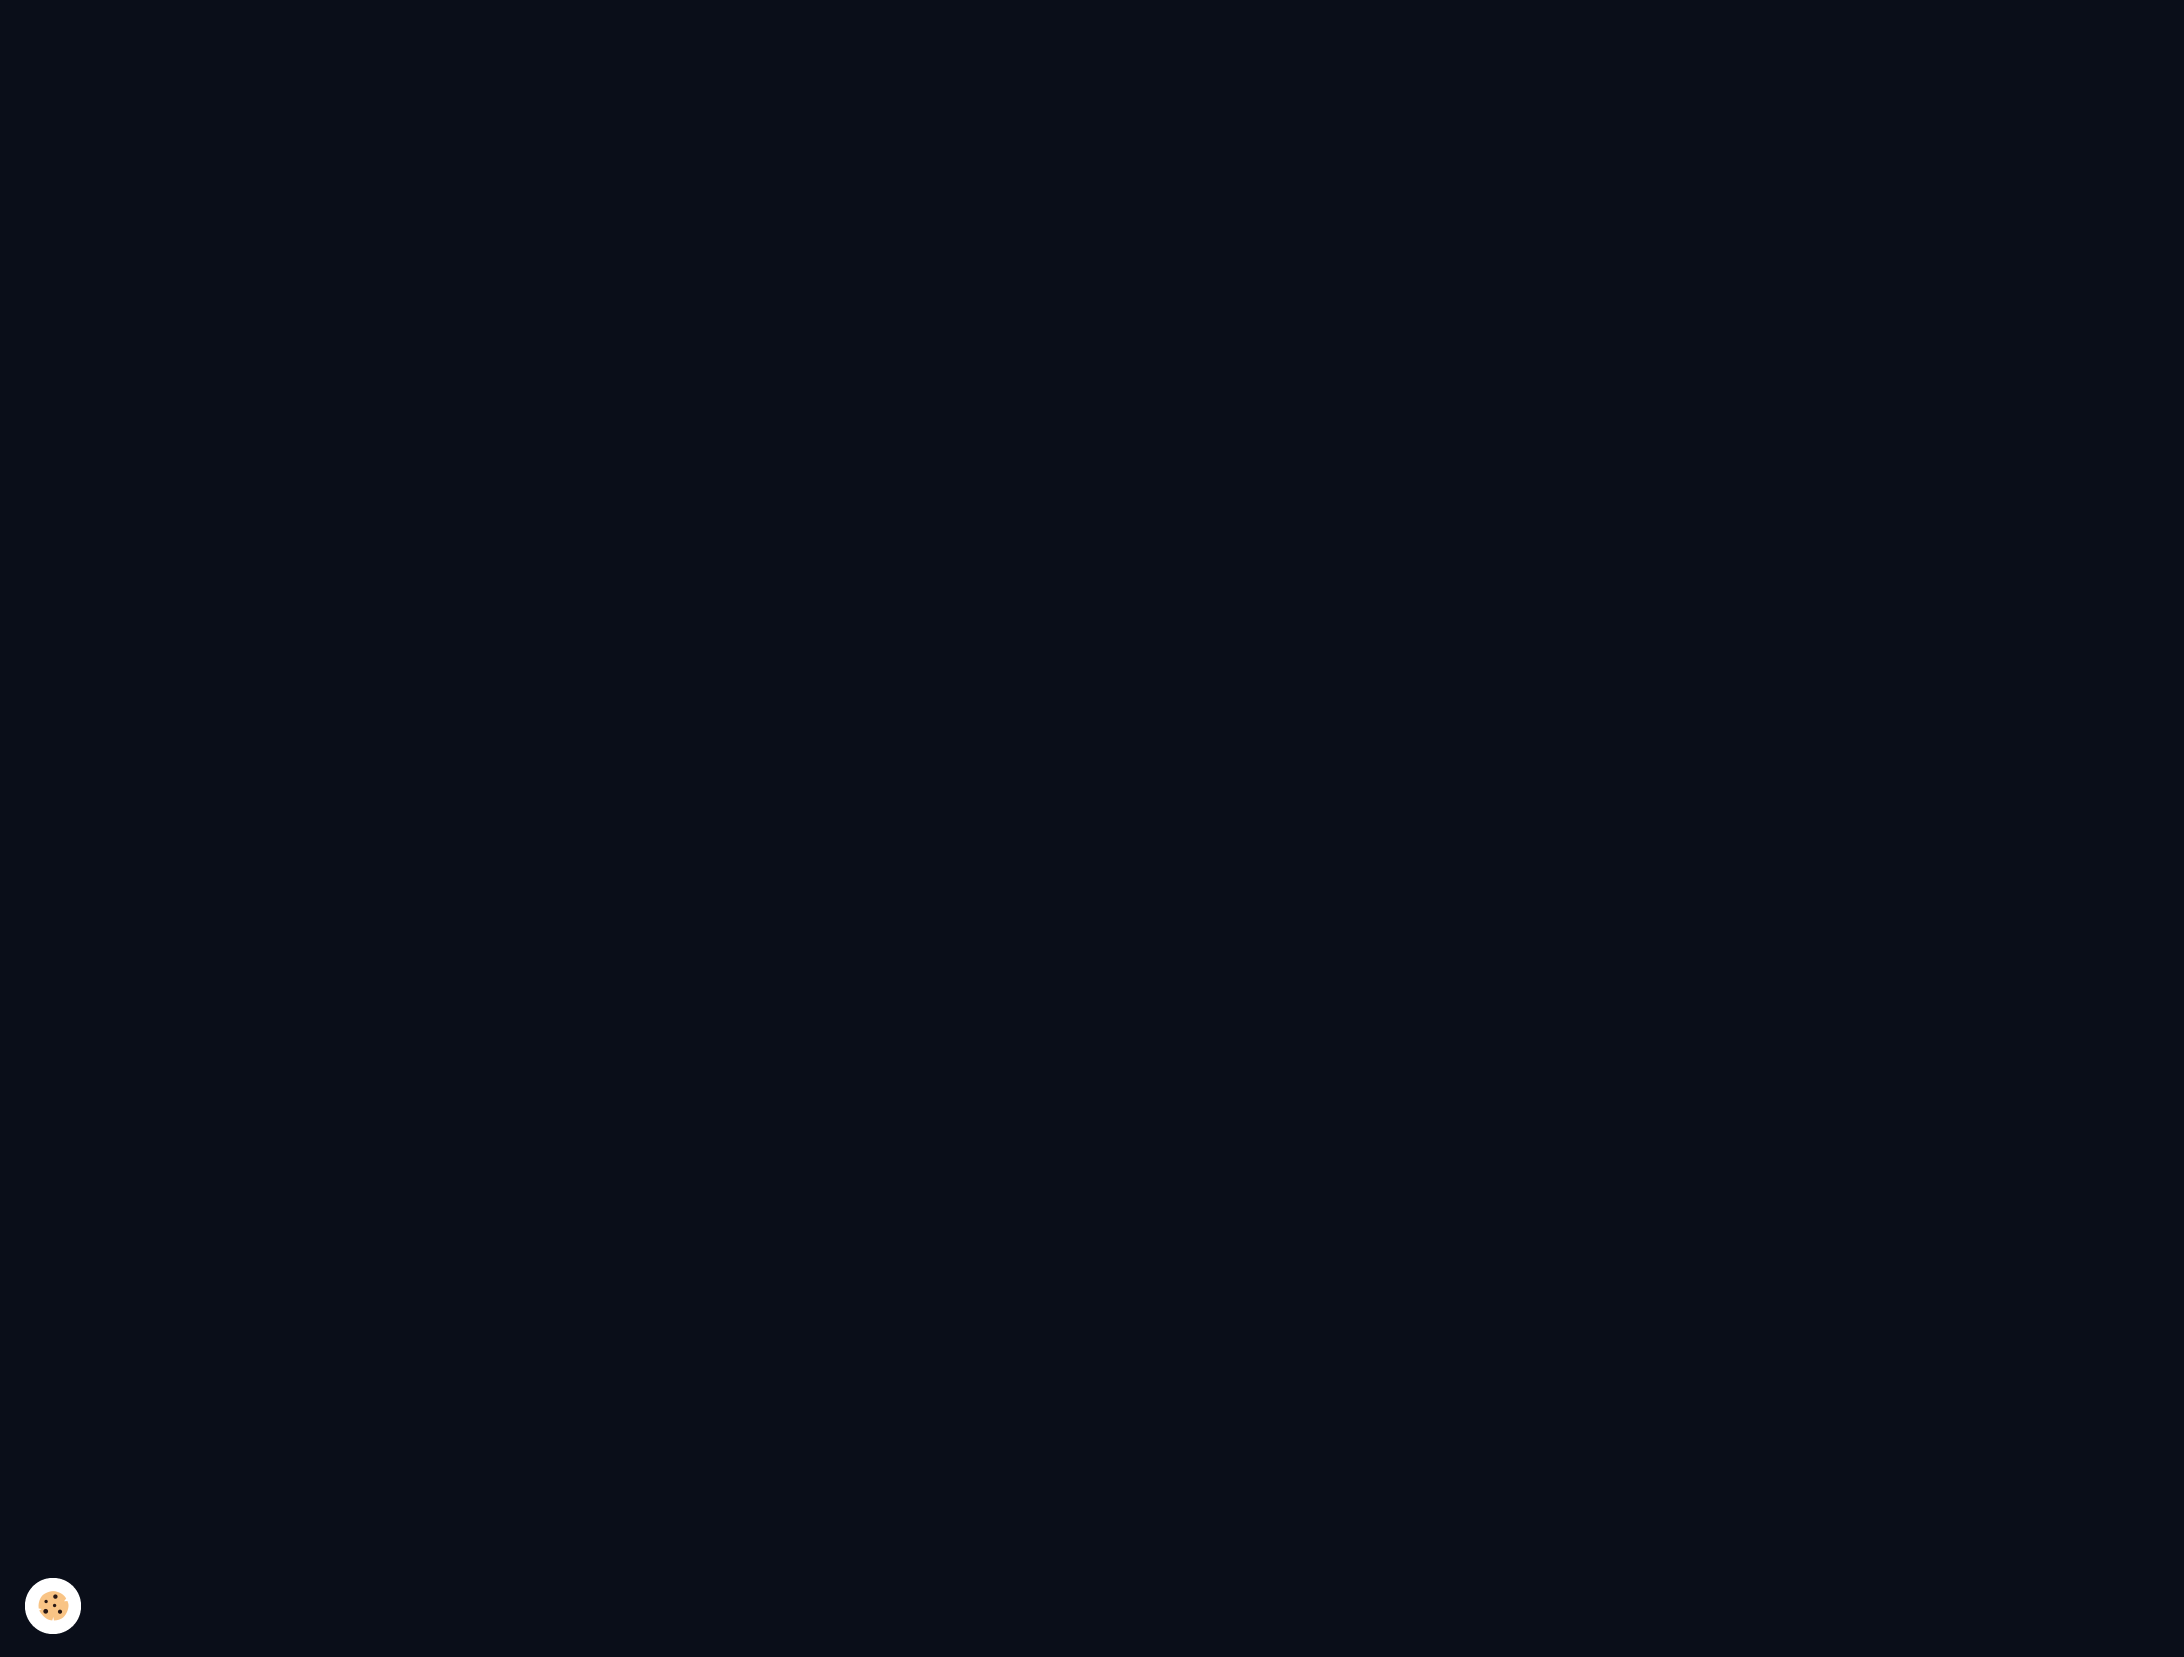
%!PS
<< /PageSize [2184 1657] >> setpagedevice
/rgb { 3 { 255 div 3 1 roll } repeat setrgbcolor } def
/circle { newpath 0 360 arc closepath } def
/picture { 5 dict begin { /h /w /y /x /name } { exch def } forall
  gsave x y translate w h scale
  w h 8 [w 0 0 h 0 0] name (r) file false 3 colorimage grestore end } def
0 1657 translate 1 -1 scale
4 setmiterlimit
10 14 25 rgb
0 0 2184 1657 rectfill
255 255 255 rgb
53 1606 28 circle fill
(img/1.rgb) 38 1591 31 30 picture
showpage
